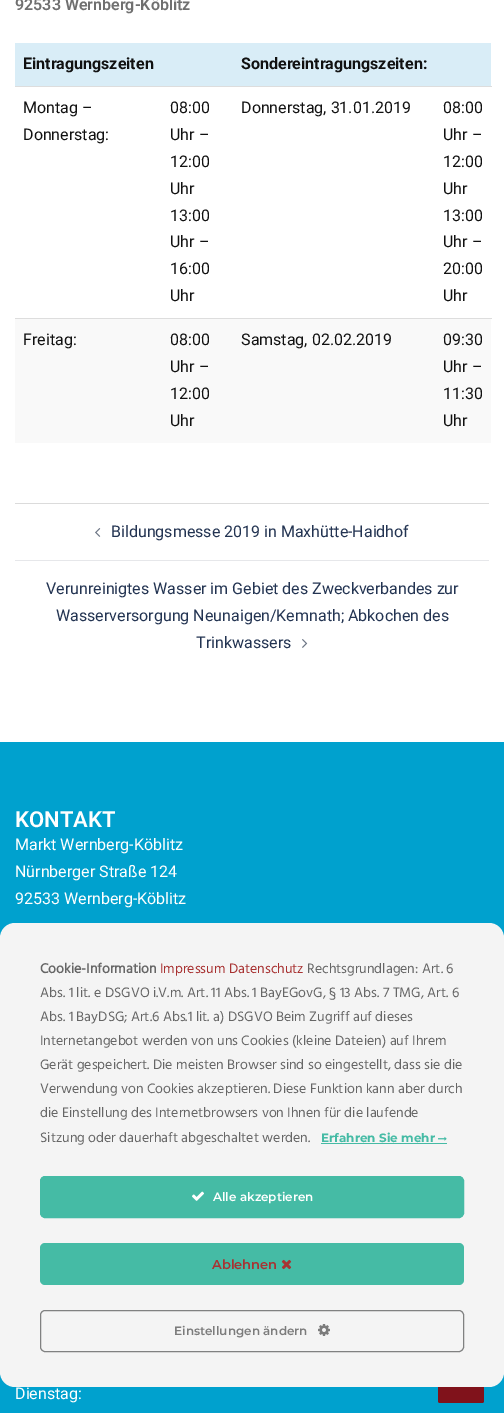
%!PS
<< /PageSize [504 1413] >> setpagedevice
/rgb { 3 { 255 div 3 1 roll } repeat setrgbcolor } def
/font { [ exch dup neg 0 0 3 -1 roll 0 0 ] selectfont } def
/roundrect { 5 dict begin { /r /h /w /y /x } { exch def } forall
  x r add y moveto x w add y 2 copy h add r arct x w add y h add x 1 index r arct
  x y h add x y r arct x y 2 copy exch w add exch r arct closepath end } def
/picture { 5 dict begin { /h /w /y /x /name } { exch def } forall
  gsave x y translate w h scale
  w h 8 [w 0 0 h 0 0] name (r) file false 3 colorimage grestore end } def
0 1413 translate 1 -1 scale
4 setmiterlimit
255 255 255 rgb
0 0 504 1413 rectfill
[
  [15 43 476 43 217 237 247]
  [15 86 477 1 221 221 221]
  [15 319 476 124 249 249 249]
  [15 318 477 1 221 221 221]
  [15 503 474 1 219 219 219]
  [15 560 474 1 230 231 234]
] { aload pop rgb rectfill } forall
(img/1.rgb) 95 528 6 9 picture
(img/2.rgb) 302 639 6 9 picture
0 161 206 rgb
0 742 504 671 rectfill
128 18 27 rgb
438 1357 46 46 2 roundrect fill
244 244 244 rgb
0 923 504 464 15 roundrect fill
69 187 165 rgb
321 1143 126 1 rectfill
(img/3.rgb) 438 1136 9 5 picture
40.5 1176.5 423 41 4.5 roundrect gsave fill grestore
stroke
(img/4.rgb) 192 1191 12 10 picture
40 1243 424 42 5 roundrect fill
(img/5.rgb) 281 1259 11 11 picture
128 129 129 rgb
40.5 1310.5 423 41 4.5 roundrect stroke
(img/6.rgb) 318 1324 12 12 picture
/Roboto-SemiBold 16 font
112 112 112 rgb
15 10 moveto (92533 Wernberg-Köblitz) show
/Roboto-Bold 16 font
17 17 17 rgb
23 69 moveto (Eintragungszeiten) show
241 69 moveto (Sondereintragungszeiten:) show
/Roboto-Regular 16 font
[
  [(Montag –) 23 113]
  [(Donnerstag:) 23 140]
  [(08:00) 170 113]
  [(Uhr –) 170 140]
  [(12:00) 170 167]
  [(Uhr) 170 194]
  [(13:00) 170 221]
  [(Uhr –) 170 247]
  [(16:00) 170 274]
  [(Uhr) 170 301]
  [(Donnerstag, 31.01.2019) 241 113]
  [(08:00) 443 113]
  [(Uhr –) 443 140]
  [(12:00) 443 167]
  [(Uhr) 443 194]
  [(13:00) 443 221]
  [(Uhr –) 443 247]
  [(20:00) 443 274]
  [(Uhr) 443 301]
  [(Freitag:) 23 345]
  [(08:00) 170 345]
  [(Uhr –) 170 372]
  [(12:00) 170 399]
  [(Uhr) 170 426]
  [(Samstag, 02.02.2019) 241 345]
  [(09:30) 443 345]
  [(Uhr –) 443 372]
  [(11:30) 443 399]
  [(Uhr) 443 426]
] { aload pop moveto show } forall
35 52 82 rgb
[
  [(Bildungsmesse 2019 in Maxhütte-Haidhof) 111 537]
  [(Verunreinigtes Wasser im Gebiet des Zweckverbandes zur) 46 594]
  [(Wasserversorgung Neunaigen/Kemnath; Abkochen des) 56 621]
  [(Trinkwassers) 196 648]
] { aload pop moveto show } forall
/Roboto-SemiBold 22 font
255 255 255 rgb
15 827 moveto (KONTAKT) show
/Roboto-Regular 16 font
[
  [(Markt Wernberg-Köblitz) 15 850]
  [(Nürnberger Straße 124) 15 877]
  [(92533 Wernberg-Köblitz) 15 904]
  [(Dienstag:) 15 1399]
] { aload pop moveto show } forall
/Hind-Bold 14 font
102 102 102 rgb
40 973 moveto (Cookie-Information) show
/Hind-Regular 14 font
168 50 50 rgb
160 973 moveto (Impressum Datenschutz) show
102 102 102 rgb
[
  [(Rechtsgrundlagen: Art. 6) 307 973]
  [(Abs. 1 lit. e DSGVO i.V.m. Art. 11 Abs. 1 BayEGovG, § 13 Abs. 7 TMG, Art. 6) 40 997]
  [(Abs. 1 BayDSG; Art.6 Abs.1 lit. a\) DSGVO Beim Zugriff auf dieses) 40 1021]
  [(Internetangebot werden von uns Cookies \(kleine Dateien\) auf Ihrem) 40 1045]
  [(Gerät gespeichert. Die meisten Browser sind so eingestellt, dass sie die) 40 1069]
  [(Verwendung von Cookies akzeptieren. Diese Funktion kann aber durch) 40 1093]
  [(die Einstellung des Internetbrowsers von Ihnen für die laufende) 40 1117]
  [(Sitzung oder dauerhaft abgeschaltet werden.) 40 1142]
] { aload pop moveto show } forall
/Montserrat-Bold 12 font
69 187 165 rgb
321 1142 moveto (Erfahren Sie mehr) show
/Montserrat-SemiBold 12 font
255 255 255 rgb
213 1201 moveto (Alle akzeptieren) show
/Montserrat-SemiBold 13 font
168 50 50 rgb
212 1269 moveto (Ablehnen) show
/Montserrat-SemiBold 12 font
124 124 124 rgb
174 1335 moveto (Einstellungen ändern) show
showpage
